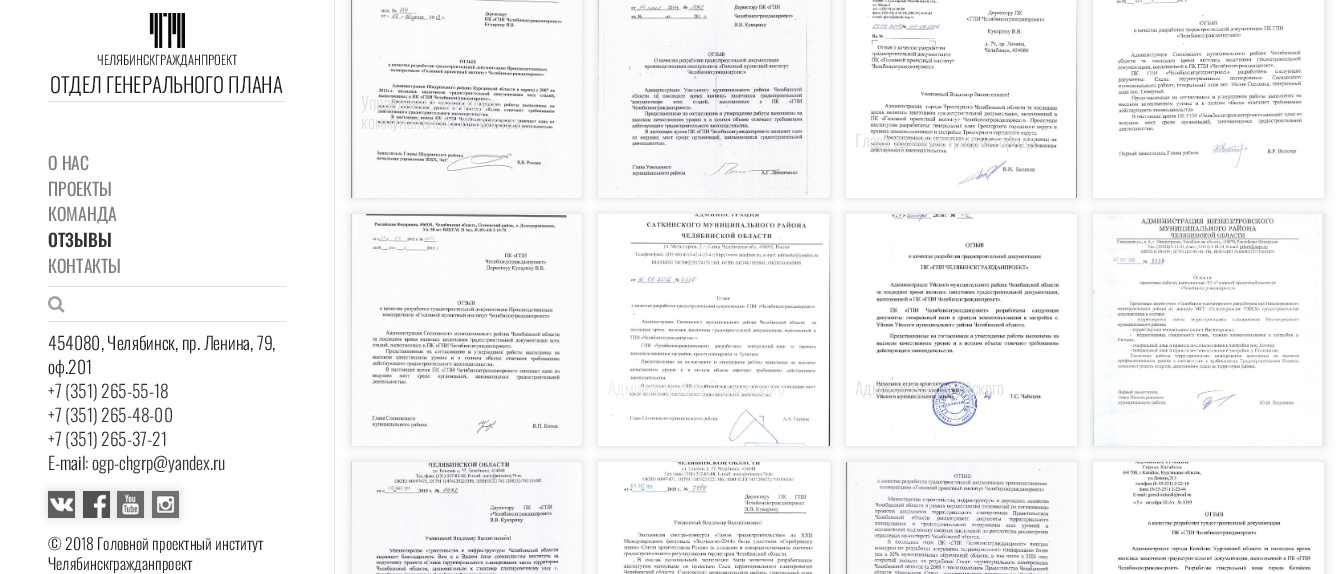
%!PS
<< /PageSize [1340 574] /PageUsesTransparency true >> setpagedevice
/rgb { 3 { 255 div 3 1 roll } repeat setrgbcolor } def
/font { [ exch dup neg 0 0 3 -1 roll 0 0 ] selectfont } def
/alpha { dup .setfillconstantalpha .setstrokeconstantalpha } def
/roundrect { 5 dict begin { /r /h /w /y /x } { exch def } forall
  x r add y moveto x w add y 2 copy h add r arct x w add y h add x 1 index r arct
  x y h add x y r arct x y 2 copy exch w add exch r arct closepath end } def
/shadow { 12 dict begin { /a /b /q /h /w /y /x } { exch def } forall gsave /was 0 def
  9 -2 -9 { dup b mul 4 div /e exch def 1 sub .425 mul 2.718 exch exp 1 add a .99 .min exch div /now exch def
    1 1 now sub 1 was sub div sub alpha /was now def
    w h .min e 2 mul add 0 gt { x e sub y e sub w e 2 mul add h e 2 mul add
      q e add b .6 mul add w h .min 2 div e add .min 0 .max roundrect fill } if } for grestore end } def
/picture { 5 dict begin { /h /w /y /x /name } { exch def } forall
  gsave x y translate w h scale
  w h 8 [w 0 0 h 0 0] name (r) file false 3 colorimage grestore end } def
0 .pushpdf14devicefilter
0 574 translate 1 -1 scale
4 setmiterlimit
255 255 255 rgb
0 0 1340 574 rectfill
222 226 230 rgb
334 0 1 574 rectfill
48 101 238 1 rectfill
(img/1.rgb) 149 13 36 35 picture
48 286 238 1 rectfill
48 321 238 1 rectfill
(img/2.rgb) 48 296 17 17 picture
0 0 0 rgb
48 491 27 27 0 5 0.15 shadow
(img/3.rgb) 48 491 27 27 picture
gsave
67 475 moveto 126 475 lineto 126 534 lineto 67 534 lineto closepath 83 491 moveto 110 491 lineto 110 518 lineto 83 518 lineto closepath eoclip newpath
83 491 27 27 0 5 0.15 shadow
grestore
(img/4.rgb) 83 491 27 27 picture
117 491 27 27 0 5 0.15 shadow
(img/5.rgb) 117 491 27 27 picture
152 491 27 27 0 5 0.15 shadow
(img/6.rgb) 152 491 27 27 picture
351 -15 231 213 0 5 0.15 shadow
(img/7.rgb) 351 0 231 198 picture
598 -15 232 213 0 5 0.15 shadow
(img/8.rgb) 598 0 232 198 picture
gsave
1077 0 moveto 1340 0 lineto 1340 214 lineto 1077 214 lineto closepath 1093 -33 moveto 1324 -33 lineto 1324 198 lineto 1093 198 lineto closepath eoclip newpath
1093 -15 231 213 0 5 0.15 shadow
grestore
(img/9.rgb) 1116 0 186 198 picture
gsave
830 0 moveto 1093 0 lineto 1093 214 lineto 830 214 lineto closepath 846 -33 moveto 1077 -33 lineto 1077 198 lineto 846 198 lineto closepath eoclip newpath
846 -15 231 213 0 5 0.15 shadow
grestore
(img/10.rgb) 866 0 211 198 picture
351 214 231 232 0 5 0.15 shadow
(img/11.rgb) 351 214 231 232 picture
598 214 232 232 0 5 0.15 shadow
(img/12.rgb) 598 214 232 232 picture
gsave
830 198 moveto 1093 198 lineto 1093 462 lineto 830 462 lineto closepath 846 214 moveto 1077 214 lineto 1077 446 lineto 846 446 lineto closepath eoclip newpath
846 214 231 232 0 5 0.15 shadow
grestore
(img/13.rgb) 860 214 201 225 picture
1093 214 231 232 0 5 0.15 shadow
(img/14.rgb) 1093 214 229 232 picture
351 462 231 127 0 5 0.15 shadow
(img/15.rgb) 351 462 231 112 picture
gsave
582 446 moveto 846 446 lineto 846 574 lineto 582 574 lineto closepath 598 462 moveto 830 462 lineto 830 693 lineto 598 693 lineto closepath eoclip newpath
598 462 232 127 0 5 0.15 shadow
grestore
(img/16.rgb) 623 462 207 112 picture
846 462 231 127 0 5 0.15 shadow
(img/17.rgb) 846 462 231 112 picture
gsave
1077 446 moveto 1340 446 lineto 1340 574 lineto 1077 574 lineto closepath 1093 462 moveto 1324 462 lineto 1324 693 lineto 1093 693 lineto closepath eoclip newpath
1093 462 231 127 0 5 0.15 shadow
grestore
(img/18.rgb) 1117 462 194 110 picture
/Oswald-Light 12.75 font
26 26 26 rgb
97 65 moveto (ЧЕЛЯБИНСКГРАЖДАНПРОЕКТ) show
/Oswald-Light 20.75 font
50 93 moveto (ОТДЕЛ ГЕНЕРАЛЬНОГО ПЛАНА) show
/Oswald-Regular 17.6 font
128 128 128 rgb
[
  [(О НАС) 48 170]
  [(ПРОЕКТЫ) 48 196]
  [(КОМАНДА) 48 221]
] { aload pop moveto show } forall
/Oswald-Medium 17.6 font
51 51 51 rgb
48 247 moveto (ОТЗЫВЫ) show
/Oswald-Regular 17.6 font
128 128 128 rgb
48 273 moveto (КОНТАКТЫ) show
/Oswald-Light 17.6 font
33 37 41 rgb
48 350 moveto (454080, Челябинск, пр. Ленина, 79,) show
48 374 moveto (оф.201) show
51 51 51 rgb
[
  [(+7 \(351\) 265-55-18) 48 398]
  [(+7 \(351\) 265-48-00) 48 422]
  [(+7 \(351\) 265-37-21) 48 446]
] { aload pop moveto show } forall
33 37 41 rgb
48 470 moveto (E-mail:) show
51 51 51 rgb
92 470 moveto (ogp-chgrp@yandex.ru) show
/Oswald-Light 15.8 font
33 37 41 rgb
48 550 moveto (© 2018 Головной проектный институт) show
48 570 moveto (Челябинскгражданпроект) show
/Oswald-Light 17.6 font
222 223 224 rgb
[
  [(Управление жилищно-) 361 110]
  [(коммунального хозяйства,) 361 129]
  [(Глава администрации города) 855 148]
] { aload pop moveto show } forall
235 235 235 rgb
608 395 moveto (Администрация Саткинского) show
222 223 224 rgb
855 395 moveto (Администрация Уйского) show
.poppdf14devicefilter showpage
